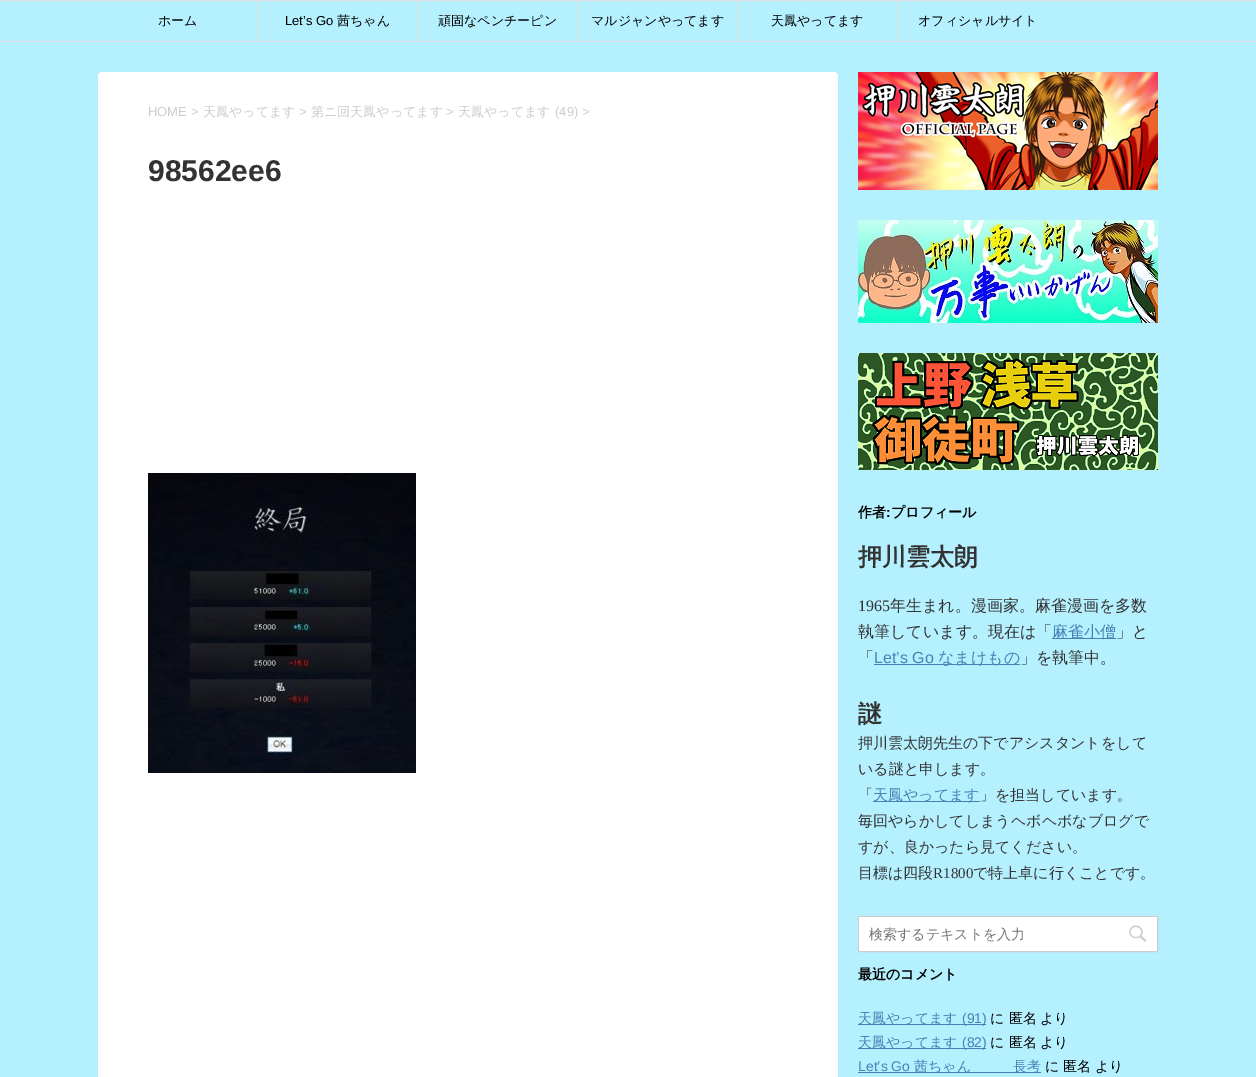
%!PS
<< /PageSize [1256 1077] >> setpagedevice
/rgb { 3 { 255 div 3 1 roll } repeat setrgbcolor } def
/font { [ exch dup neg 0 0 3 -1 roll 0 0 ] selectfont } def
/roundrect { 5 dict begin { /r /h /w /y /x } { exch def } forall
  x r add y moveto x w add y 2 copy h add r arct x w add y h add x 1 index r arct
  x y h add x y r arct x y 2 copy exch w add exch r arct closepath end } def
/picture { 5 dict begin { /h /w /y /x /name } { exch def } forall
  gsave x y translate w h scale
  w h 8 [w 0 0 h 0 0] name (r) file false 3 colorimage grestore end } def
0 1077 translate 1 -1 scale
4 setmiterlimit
181 240 255 rgb
0 0 1256 1077 rectfill
[
  [0 0 1256 1 224 222 222]
  [0 41 1256 1 224 222 222]
  [257 1 1 40 224 222 222]
  [417 1 1 40 224 222 222]
  [577 1 1 40 224 222 222]
  [737 1 1 40 224 222 222]
  [897 1 1 40 224 222 222]
] { aload pop rgb rectfill } forall
255 255 255 rgb
98 72 740 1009 4 roundrect fill
(img/1.rgb) 148 473 268 300 picture
(img/2.rgb) 858 72 300 118 picture
(img/3.rgb) 858 220 300 103 picture
(img/4.rgb) 858 353 300 117 picture
[
  [1052 638 64 1 70 130 180]
  [874 664 146 1 70 130 180]
  [873 801 107 1 70 130 180]
] { aload pop rgb rectfill } forall
204 204 204 rgb
858.5 916.5 299 35 rectstroke
255 255 255 rgb
859 917 298 34 rectfill
(img/5.rgb) 1129 925 18 17 picture
[
  [858 1024 128 1 70 130 180]
  [858 1048 128 1 70 130 180]
  [858 1072 183 1 70 130 180]
] { aload pop rgb rectfill } forall
/WenQuanYiZenHei-Medium 13 font
0 0 0 rgb
158 25 moveto (ホーム) show
/LiberationSans-Regular 13 font
285 25 moveto (Let’s Go) show
/WenQuanYiZenHei-Medium 13 font
[
  [(茜ちゃん) 337 25]
  [(頑固なペンチーピン) 438 25]
  [(マルジャンやってます) 591 25]
  [(天鳳やってます) 771 25]
  [(オフィシャルサイト) 918 25]
] { aload pop moveto show } forall
/LiberationSans-Regular 13 font
204 204 204 rgb
148 116 moveto (HOME >) show
/WenQuanYiZenHei-Medium 13 font
203 116 moveto (天鳳やってます) show
/LiberationSans-Regular 13 font
299 116 moveto (>) show
/WenQuanYiZenHei-Medium 13 font
311 116 moveto (第ニ回天鳳やってます) show
/LiberationSans-Regular 13 font
446 116 moveto (>) show
/WenQuanYiZenHei-Medium 13 font
458 116 moveto (天鳳やってます) show
/LiberationSans-Regular 13 font
555 116 moveto (\(49\) >) show
/LiberationSans-Bold 30 font
51 51 51 rgb
148 181 moveto (98562ee6) show
/WenQuanYiZenHei-Bold 14 font
0 0 0 rgb
858 517 moveto (作者) show
/LiberationSans-Bold 14 font
886 517 moveto (:) show
/WenQuanYiZenHei-Bold 14 font
891 517 moveto (プロフィール) show
/WenQuanYiZenHei-Bold 24 font
51 51 51 rgb
858 565 moveto (押川雲太朗) show
/LiberationSerif-Regular 16 font
858 611 moveto (1965) show
/WenQuanYiZenHei-Medium 16 font
890 611 moveto (年生まれ。漫画家。麻雀漫画を多数) show
858 637 moveto (執筆しています。現在は「) show
70 130 180 rgb
1052 637 moveto (麻雀小僧) show
51 51 51 rgb
1116 637 moveto (」と) show
858 663 moveto (「) show
/LiberationSans-Regular 16 font
70 130 180 rgb
874 663 moveto (Let’s Go) show
/WenQuanYiZenHei-Medium 16 font
938 663 moveto (なまけもの) show
51 51 51 rgb
1020 663 moveto (」を執筆中。) show
/WenQuanYiZenHei-Bold 24 font
858 722 moveto (謎) show
/WenQuanYiZenHei-Medium 15 font
[
  [(押川雲太朗先生の下でアシスタントをして) 858 748]
  [(いる謎と申します。) 858 774]
  [(「) 858 800]
] { aload pop moveto show } forall
70 130 180 rgb
873 800 moveto (天鳳やってます) show
51 51 51 rgb
[
  [(」を担当しています。) 980 800]
  [(毎回やらかしてしまうヘボヘボなブログで) 858 826]
  [(すが、良かったら見てください。) 858 852]
  [(目標は四段) 858 878]
] { aload pop moveto show } forall
/LiberationSerif-Regular 15 font
933 878 moveto (R1800) show
/WenQuanYiZenHei-Medium 15 font
973 878 moveto (で特上卓に行くことです。) show
/WenQuanYiZenHei-Medium 14 font
117 117 117 rgb
869 939 moveto (検索するテキストを入力) show
/WenQuanYiZenHei-Bold 14 font
0 0 0 rgb
858 979 moveto (最近のコメント) show
/WenQuanYiZenHei-Medium 14 font
70 130 180 rgb
858 1023 moveto (天鳳やってます) show
/LiberationSans-Regular 14 font
962 1023 moveto (\(91\)) show
/WenQuanYiZenHei-Medium 14 font
0 0 0 rgb
[
  [(に) 990 1023]
  [(匿名) 1009 1023]
  [(より) 1040 1023]
] { aload pop moveto show } forall
70 130 180 rgb
858 1047 moveto (天鳳やってます) show
/LiberationSans-Regular 14 font
962 1047 moveto (\(82\)) show
/WenQuanYiZenHei-Medium 14 font
0 0 0 rgb
[
  [(に) 990 1047]
  [(匿名) 1009 1047]
  [(より) 1040 1047]
] { aload pop moveto show } forall
/LiberationSans-Regular 14 font
70 130 180 rgb
858 1071 moveto (Let’s Go) show
/WenQuanYiZenHei-Medium 14 font
914 1071 moveto (茜ちゃん　　　長考) show
0 0 0 rgb
[
  [(に) 1045 1071]
  [(匿名) 1063 1071]
  [(より) 1095 1071]
] { aload pop moveto show } forall
showpage
